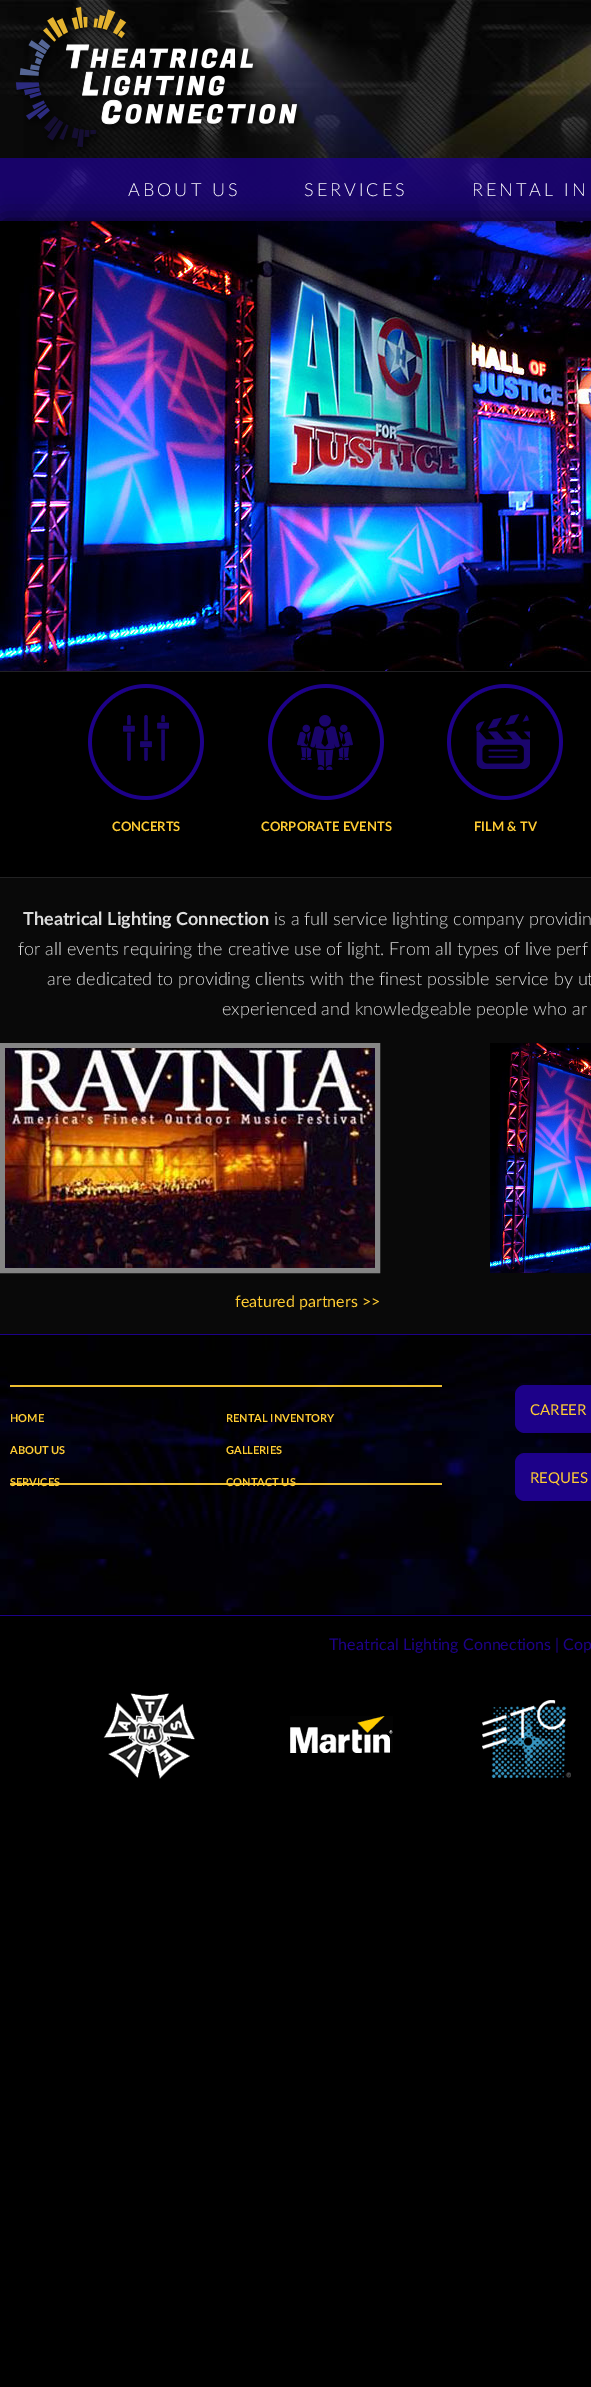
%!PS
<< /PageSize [591 2387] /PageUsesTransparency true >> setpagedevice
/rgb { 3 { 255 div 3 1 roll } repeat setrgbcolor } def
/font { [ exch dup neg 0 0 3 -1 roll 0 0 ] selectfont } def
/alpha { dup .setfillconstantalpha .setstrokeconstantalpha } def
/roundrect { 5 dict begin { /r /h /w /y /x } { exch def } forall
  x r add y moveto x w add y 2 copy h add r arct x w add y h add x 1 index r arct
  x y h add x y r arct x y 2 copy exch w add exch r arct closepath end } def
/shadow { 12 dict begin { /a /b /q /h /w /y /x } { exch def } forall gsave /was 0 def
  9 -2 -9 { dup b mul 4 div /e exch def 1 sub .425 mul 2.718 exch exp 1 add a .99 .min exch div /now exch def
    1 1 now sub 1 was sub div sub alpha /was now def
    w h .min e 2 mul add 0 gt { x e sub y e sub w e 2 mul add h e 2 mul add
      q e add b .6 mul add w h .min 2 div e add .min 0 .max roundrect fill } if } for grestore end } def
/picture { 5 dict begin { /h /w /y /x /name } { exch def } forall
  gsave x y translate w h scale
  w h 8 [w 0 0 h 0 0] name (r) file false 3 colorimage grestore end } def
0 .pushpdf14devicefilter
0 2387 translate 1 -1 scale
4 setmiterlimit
0 0 0 rgb
0 0 591 2387 rectfill
(img/1.rgb) 0 0 591 221 picture
(img/2.rgb) 16 7 287 143 picture
0.75 alpha
29 1 137 rgb
0 158 591 63 rectfill
1 alpha
0 0 0 rgb
2 221 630 448 0 13.5 0.75 shadow
(img/3.rgb) 0 221 591 450 picture
33 33 35 rgb
0 671 591 1 rectfill
(img/4.rgb) 88 684 116 116 picture
(img/5.rgb) 268 684 116 116 picture
(img/6.rgb) 447 684 116 116 picture
9 9 9 rgb
0 878 591 456 rectfill
34 34 35 rgb
0 877 591 1 rectfill
(img/7.rgb) 490 1043 101 230 picture
133 133 133 rgb
5 setlinewidth
2.5 1045.5 375 225 rectstroke
(img/8.rgb) 5 1048 370 220 picture
(img/9.rgb) 0 1335 591 279 picture
[
  [0 1334 591 1 29 1 137]
  [0 1615 591 1 29 1 137]
  [10 1385 432 2 236 189 47]
  [10 1483 432 2 236 189 47]
] { aload pop rgb rectfill } forall
29 1 137 rgb
515 1385 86 48 10 roundrect fill
515 1453 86 48 10 roundrect fill
(img/10.rgb) 103 1693 92 86 picture
(img/11.rgb) 290 1716 103 37 picture
(img/12.rgb) 482 1700 89 78 picture
/Lato-Light 18 font
255 255 255 rgb
128 196 moveto 3 0 (ABOUT US) ashow
304 196 moveto 3 0 (SERVICES) ashow
472 196 moveto 3 0 (RENTAL IN) ashow
/Lato-Bold 13 font
255 204 51 rgb
[
  [(CONCERTS) 112 831]
  [(CORPORATE EVENTS) 261 831]
  [(FILM & TV) 474 831]
] { aload pop moveto show } forall
/Lato-Bold 18 font
221 221 221 rgb
23 925 moveto (Theatrical Lighting Connection) show
/Lato-Light 18 font
[
  [(is a full service lighting company providin) 274 925]
  [(for all events requiring the creative use of light. From all types of live perf) 18 955]
  [(are dedicated to providing clients with the finest possible service by ut) 47 985]
  [(experienced and knowledgeable people who ar) 222 1015]
] { aload pop moveto show } forall
/Lato-Regular 16 font
255 204 51 rgb
235 1307 moveto (featured partners >>) show
/Lato-Bold 11 font
[
  [(HOME) 10 1422]
  [(RENTAL INVENTORY) 226 1422]
  [(ABOUT US) 10 1454]
  [(GALLERIES) 226 1454]
  [(SERVICES) 10 1486]
  [(CONTACT US) 226 1486]
] { aload pop moveto show } forall
/Lato-Regular 15 font
530 1415 moveto (CAREER) show
530 1483 moveto (REQUES) show
/Lato-Regular 16 font
29 1 137 rgb
329 1650 moveto (Theatrical Lighting Connections | Cop) show
.poppdf14devicefilter showpage
